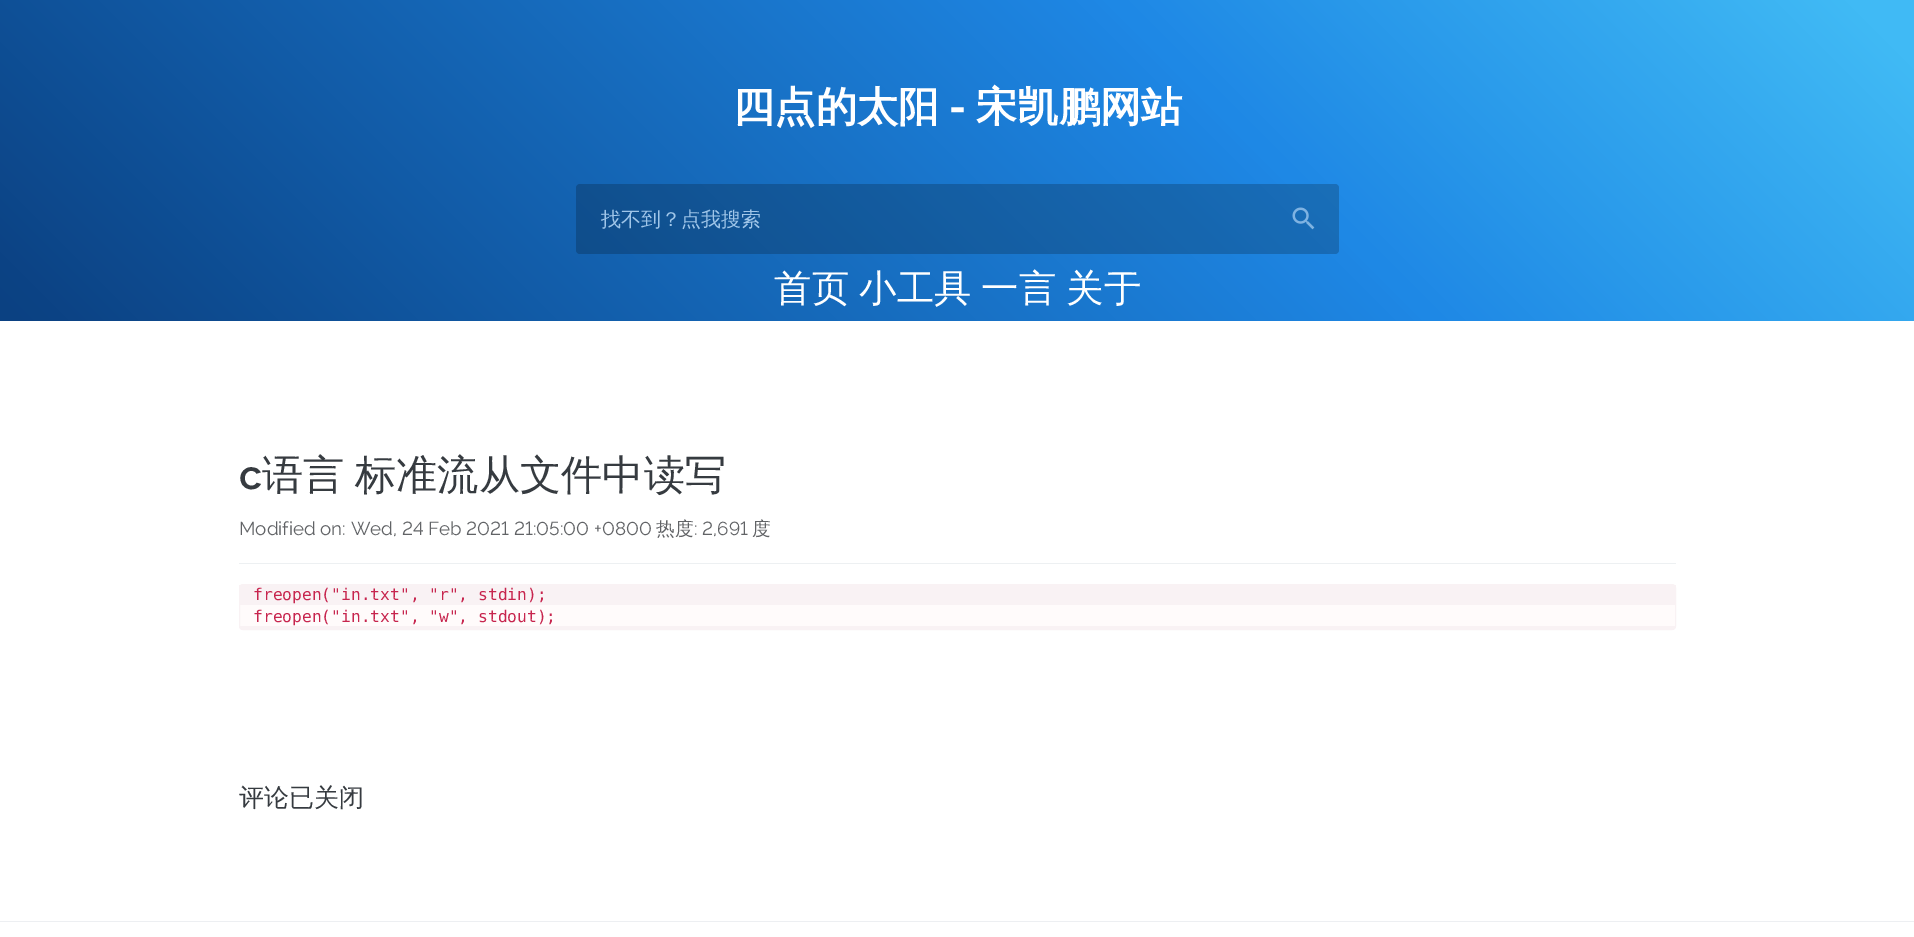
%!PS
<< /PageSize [1914 937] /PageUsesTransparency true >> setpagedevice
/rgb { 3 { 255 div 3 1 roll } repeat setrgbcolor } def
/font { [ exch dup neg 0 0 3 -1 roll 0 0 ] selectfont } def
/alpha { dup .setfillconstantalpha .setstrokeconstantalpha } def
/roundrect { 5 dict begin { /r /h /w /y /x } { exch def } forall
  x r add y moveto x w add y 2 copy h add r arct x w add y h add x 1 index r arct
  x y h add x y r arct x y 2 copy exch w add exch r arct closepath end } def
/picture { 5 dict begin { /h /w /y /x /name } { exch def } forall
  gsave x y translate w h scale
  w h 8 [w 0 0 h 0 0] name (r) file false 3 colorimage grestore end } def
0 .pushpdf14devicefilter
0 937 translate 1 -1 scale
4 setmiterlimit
255 255 255 rgb
0 0 1914 937 rectfill
gsave 0 0 moveto 1914 0 lineto 1914 321 lineto 0 321 lineto closepath clip newpath
<< /ShadingType 2 /ColorSpace /DeviceRGB /Coords [398 720 1517 -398] /Extend [true true] /Function << /FunctionType 3 /Domain [0 1] /Functions [<< /FunctionType 2 /Domain [0 1] /C0 [0.043 0.255 0.51] /C1 [0.043 0.255 0.51] /N 1 >> << /FunctionType 2 /Domain [0 1] /C0 [0.043 0.255 0.51] /C1 [0.118 0.533 0.898] /N 1 >> << /FunctionType 2 /Domain [0 1] /C0 [0.118 0.533 0.898] /C1 [0.251 0.729 0.961] /N 1 >> << /FunctionType 2 /Domain [0 1] /C0 [0.251 0.729 0.961] /C1 [0.251 0.729 0.961] /N 1 >>] /Bounds [0.01 0.64 0.97] /Encode [0 1 0 1 0 1 0 1] >> >> shfill grestore
0.2 alpha
0 0 0 rgb
576 184 763 70 4 roundrect fill
1 alpha
(img/1.rgb) 1292 207 23 23 picture
237 240 242 rgb
239 563 1437 1 rectfill
gsave
239 584 1437 46 4 roundrect clip newpath
249 242 244 rgb
239 585 1437 20 rectfill
grestore
255 251 251 rgb
240 605 1435 21 rectfill
249 242 244 rgb
239 626 moveto 1676 626 lineto 1676 628 1674 630 1672 630 curveto 243 630 lineto 241 630 239 628 239 626 curveto closepath fill
239.5 584.5 1436 45 3.5 roundrect stroke
237 239 242 rgb
0 921 1914 1 rectfill
/WenQuanYiZenHei-Bold 41.25 font
255 255 255 rgb
733 121 moveto (四点的太阳) show
/Raleway-Bold 41.25 font
949 121 moveto (-) show
/WenQuanYiZenHei-Bold 41.25 font
976 121 moveto (宋凯鹏网站) show
/WenQuanYiZenHei-Medium 20 font
160 198 233 rgb
601 226 moveto (找不到？点我搜索) show
/WenQuanYiZenHei-Medium 37.5 font
255 255 255 rgb
[
  [(首页) 774 301]
  [(小工具) 859 301]
  [(一言) 981 301]
  [(关于) 1066 301]
] { aload pop moveto show } forall
/Raleway-SemiBold 41.25 font
54 59 64 rgb
239 489 moveto (c) show
/WenQuanYiZenHei-Medium 41.25 font
262 489 moveto -2 0 32 (语言 标准流从文件中读写) widthshow
/Raleway-Regular 18.75 font
97 99 102 rgb
239 535 moveto (Modified on: Wed, 24 Feb 2021 21:05:00 +0800) show
/WenQuanYiZenHei-Medium 18.75 font
656 535 moveto (热度) show
/Raleway-Regular 18.75 font
694 535 moveto (: 2,691) show
/WenQuanYiZenHei-Medium 18.75 font
752 535 moveto (度) show
/DejaVuSansMono-Regular 16.25 font
199 37 78 rgb
253 600 moveto (freopen\("in.txt", "r", stdin\);) show
253 622 moveto (freopen\("in.txt", "w", stdout\);) show
/WenQuanYiZenHei-Medium 25 font
54 59 64 rgb
239 806 moveto (评论已关闭) show
.poppdf14devicefilter showpage
